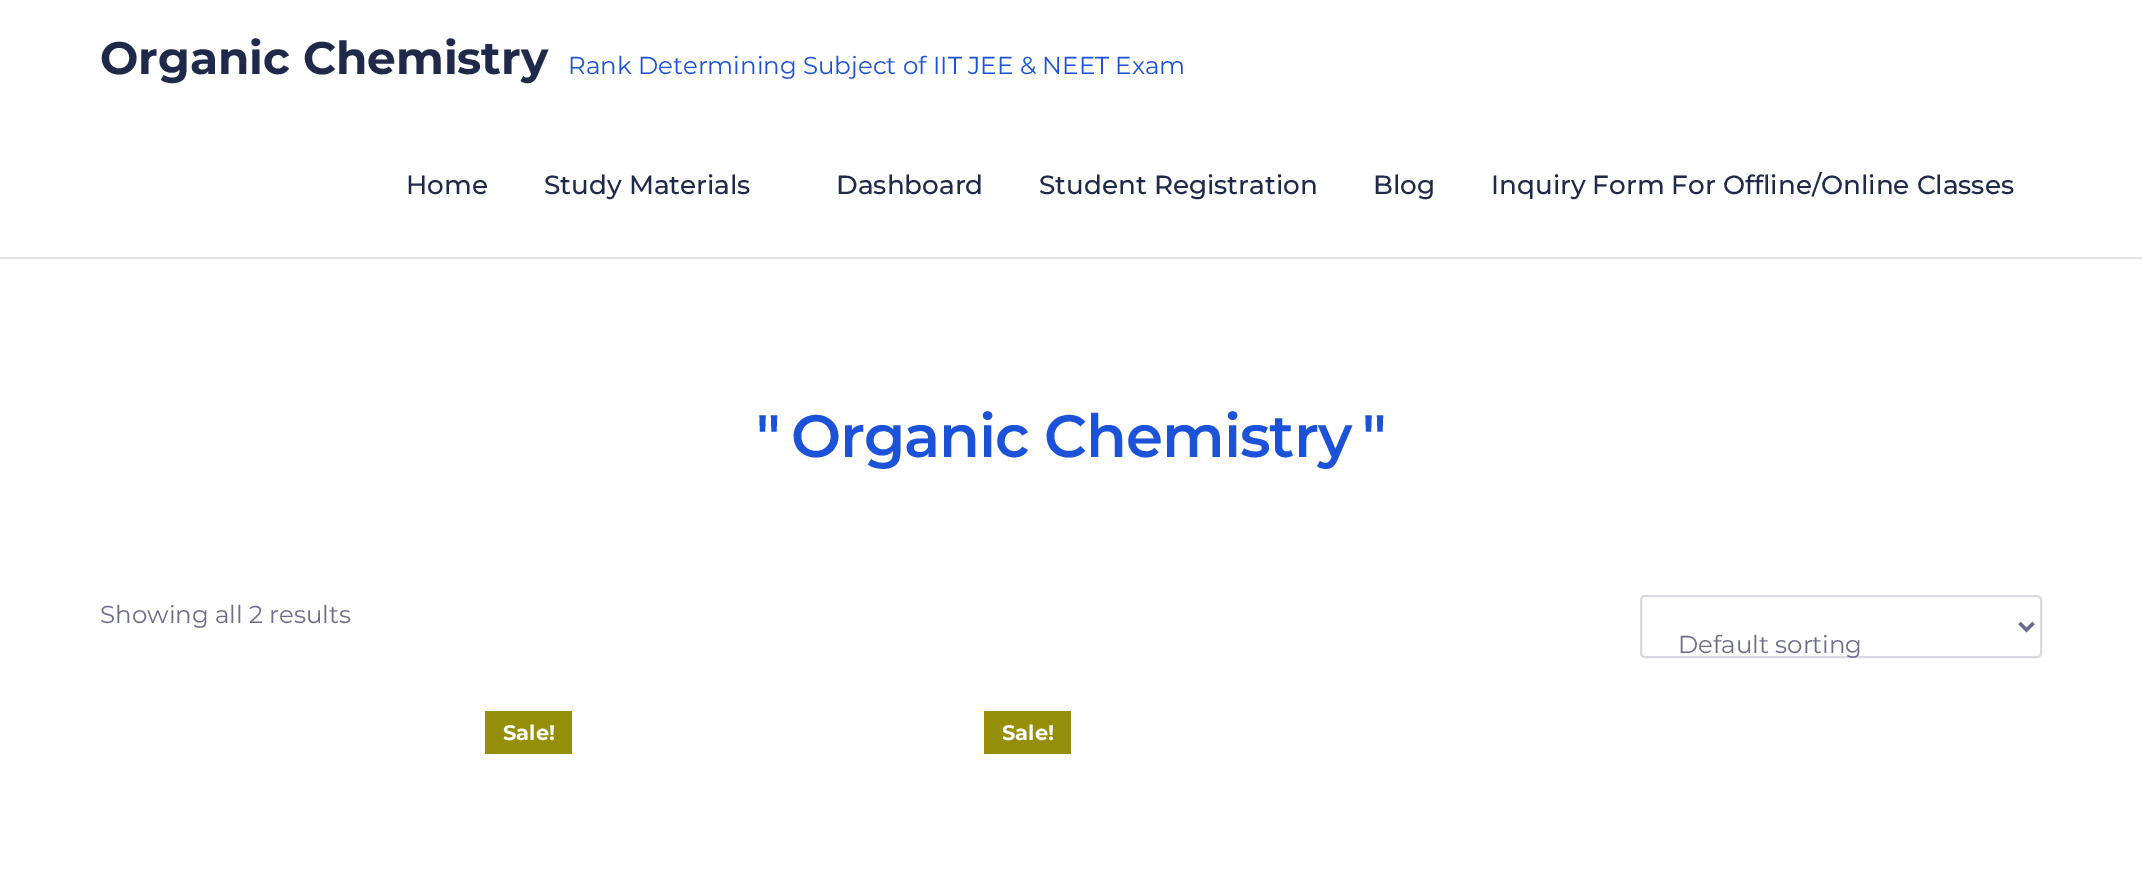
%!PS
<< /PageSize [2142 873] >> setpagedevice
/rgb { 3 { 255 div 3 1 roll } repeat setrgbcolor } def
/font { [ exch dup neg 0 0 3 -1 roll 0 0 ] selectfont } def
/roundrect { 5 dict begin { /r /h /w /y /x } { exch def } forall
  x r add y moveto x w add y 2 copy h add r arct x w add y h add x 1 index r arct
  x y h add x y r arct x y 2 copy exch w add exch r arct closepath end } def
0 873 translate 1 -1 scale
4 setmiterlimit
255 255 255 rgb
0 0 2142 873 rectfill
223 226 233 rgb
0 257 2142 2 rectfill
218 219 226 rgb
2 setlinewidth
1641 596 400 61 4 roundrect stroke
108 109 139 rgb
3.5 setlinewidth
2019.5 623 moveto 2026.5 630 lineto 2033.5 623 lineto stroke
149 142 9 rgb
485 711 87 43 rectfill
984 711 87 43 rectfill
/Montserrat-Bold 45.5 font
31 41 73 rgb
100 74 moveto (Organic Chemistry) show
/Montserrat-Regular 24.5 font
27 82 216 rgb
568 74 moveto (Rank Determining Subject of IIT JEE & NEET Exam) show
/Montserrat-Medium 26.25 font
31 41 73 rgb
[
  [(Home) 406 194]
  [(Study Materials) 544 194]
  [(Dashboard) 836 194]
  [(Student Registration) 1039 194]
  [(Blog) 1373 194]
  [(Inquiry Form For Offline/Online Classes) 1491 194]
] { aload pop moveto show } forall
/Montserrat-SemiBold 59.5 font
27 82 216 rgb
756 457 moveto -1 0 (") ashow
791 457 moveto -1 0 (Organic Chemistry) ashow
1362 457 moveto -1 0 (") ashow
/Montserrat-Regular 24.5 font
108 109 139 rgb
100 623 moveto (Showing all 2 results) show
1678 653 moveto (Default sorting) show
/Montserrat-Bold 21 font
255 255 255 rgb
503 740 moveto (Sale!) show
1002 740 moveto (Sale!) show
showpage
